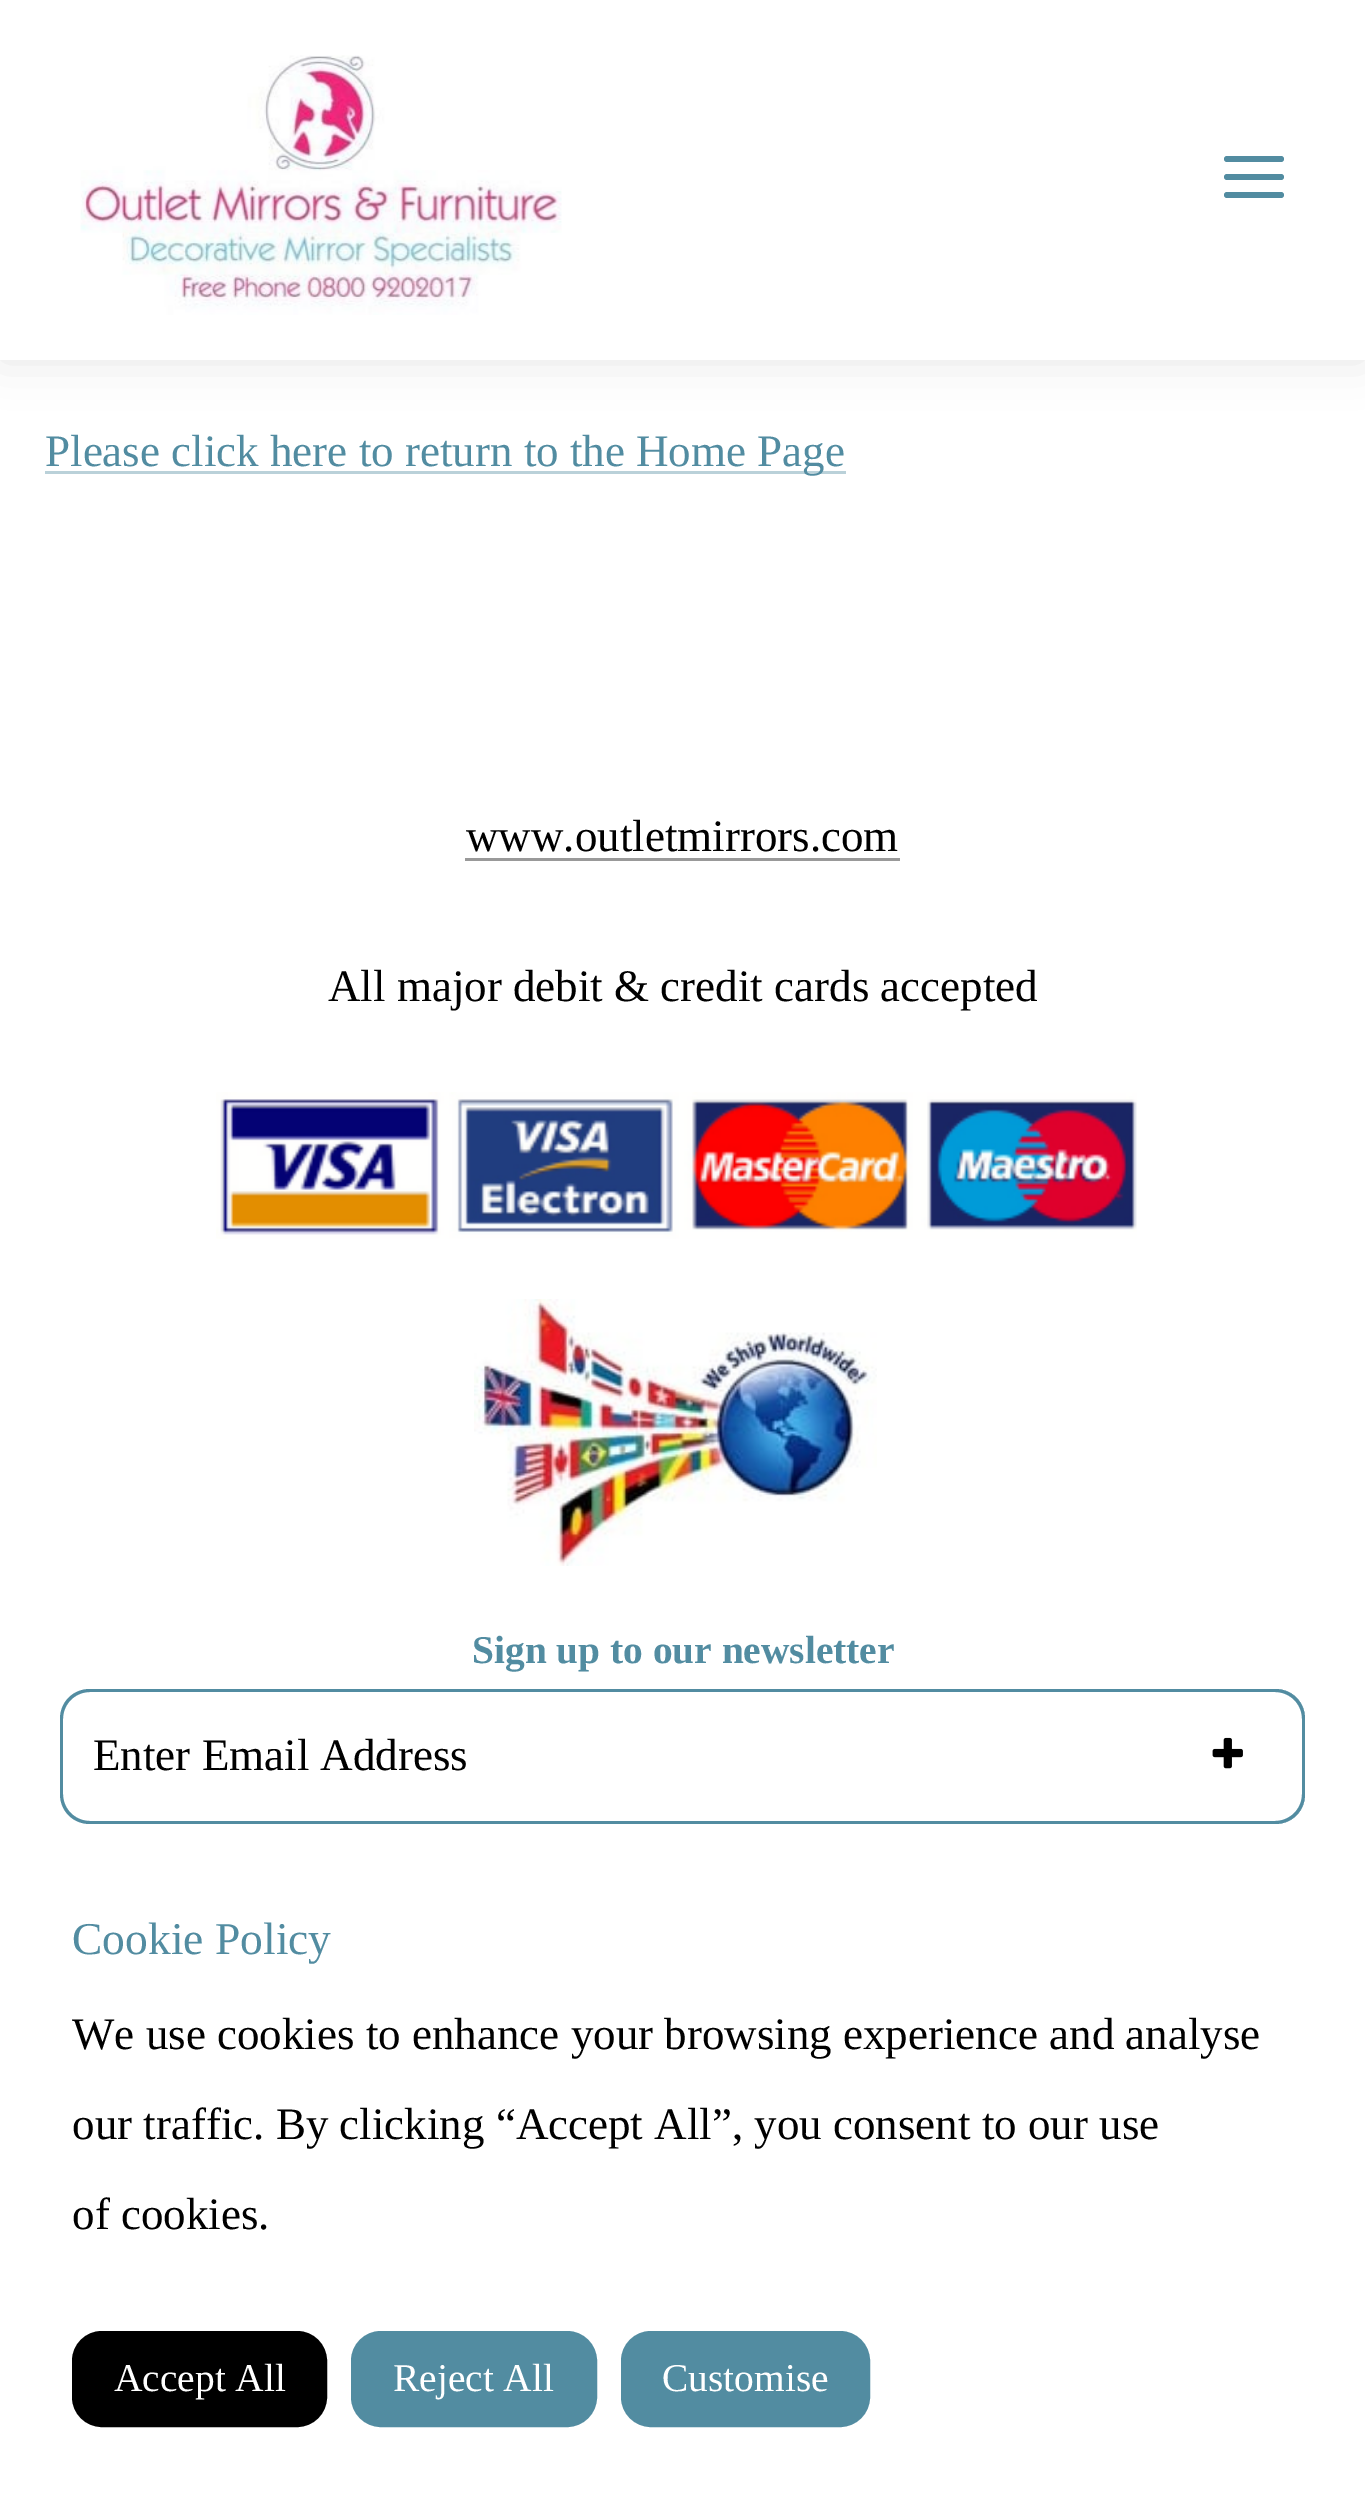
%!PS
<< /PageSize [1365 2497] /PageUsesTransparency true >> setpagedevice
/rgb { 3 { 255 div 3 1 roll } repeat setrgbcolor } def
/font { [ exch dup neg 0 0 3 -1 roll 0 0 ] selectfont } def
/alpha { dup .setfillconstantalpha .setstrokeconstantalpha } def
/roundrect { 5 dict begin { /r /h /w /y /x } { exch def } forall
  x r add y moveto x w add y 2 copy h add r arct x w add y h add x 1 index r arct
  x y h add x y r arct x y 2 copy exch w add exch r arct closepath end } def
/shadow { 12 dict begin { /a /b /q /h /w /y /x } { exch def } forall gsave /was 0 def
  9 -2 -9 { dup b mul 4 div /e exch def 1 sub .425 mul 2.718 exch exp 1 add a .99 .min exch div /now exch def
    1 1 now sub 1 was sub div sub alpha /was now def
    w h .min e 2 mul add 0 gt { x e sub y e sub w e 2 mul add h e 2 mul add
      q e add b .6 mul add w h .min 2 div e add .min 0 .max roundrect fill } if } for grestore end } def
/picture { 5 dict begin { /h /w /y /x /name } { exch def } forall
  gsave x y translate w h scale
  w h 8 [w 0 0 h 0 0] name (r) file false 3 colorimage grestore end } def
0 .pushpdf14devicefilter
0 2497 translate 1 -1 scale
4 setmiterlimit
255 255 255 rgb
0 0 1365 2497 rectfill
0 0 0 rgb
0 0 1365 360 0 22.5 0.1 shadow
255 255 255 rgb
0 0 1365 360 rectfill
(img/1.rgb) 80 55 482 260 picture
82 140 161 rgb
1224 174 60 6 3 roundrect fill
1224 156 60 6 3 roundrect fill
1224 192 60 6 3 roundrect fill
186 209 217 rgb
45 471 801 3 rectfill
153 153 153 rgb
465 858 435 3 rectfill
(img/2.rgb) 216 1092 921 147 picture
(img/3.rgb) 474 1299 403 267 picture
82 140 161 rgb
90 1689 moveto 1275 1689 lineto 1292 1689 1305 1702 1305 1719 curveto 1305 1794 lineto 1305 1811 1292 1824 1275 1824 curveto 90 1824 lineto 73 1824 60 1811 60 1794 curveto 60 1719 lineto 60 1702 73 1689 90 1689 curveto closepath 90 1692 moveto 1275 1692 lineto 1292 1692 1305 1704 1305 1719 curveto 1305 1794 lineto 1305 1809 1292 1821 1275 1821 curveto 90 1821 lineto 75 1821 63 1809 63 1794 curveto 63 1719 lineto 63 1704 75 1692 90 1692 curveto closepath eofill
255 255 255 rgb
1155 1689 moveto 1275 1689 lineto 1291.5 1689 1305 1702.5 1305 1719 curveto 1305 1794 lineto 1305 1810.5 1291.5 1824 1275 1824 curveto 1155 1824 lineto closepath fill
82 140 161 rgb
1155 1689 moveto 1275 1689 lineto 1292 1689 1305 1702 1305 1719 curveto 1305 1794 lineto 1305 1811 1292 1824 1275 1824 curveto 1155 1824 lineto closepath 1155 1692 moveto 1275 1692 lineto 1290 1692 1302 1704 1302 1719 curveto 1302 1794 lineto 1302 1809 1290 1821 1275 1821 curveto 1155 1821 lineto closepath eofill
(img/4.rgb) 1212 1737 31 32 picture
0 0 0 rgb
75 2334 249 90 27 roundrect gsave fill grestore
6 setlinewidth
stroke
82 140 161 rgb
354 2334 240 90 27 roundrect gsave fill grestore
stroke
624 2334 243 90 27 roundrect gsave fill grestore
stroke
/LiberationSerif-Regular 45 font
45 466 moveto (Please click here to return to the Home Page) show
0 0 0 rgb
466 851 moveto (www.outletmirrors.com) show
328 1001 moveto (All major debit & credit cards accepted) show
/LiberationSerif-Bold 39.4 font
82 140 161 rgb
472 1663 moveto (Sign up to our newsletter) show
/LiberationSerif-Regular 45 font
0 0 0 rgb
93 1770 moveto (Enter Email Address) show
/LiberationSerif-Regular 45.5 font
82 140 161 rgb
72 1954 moveto (Cookie Policy) show
/LiberationSerif-Regular 45 font
0 0 0 rgb
[
  [(We use cookies to enhance your browsing experience and analyse) 72 2049]
  [(our traffic. By clicking “Accept All”, you consent to our use) 72 2139]
  [(of cookies.) 72 2229]
] { aload pop moveto show } forall
/LiberationSerif-Regular 39.4 font
255 255 255 rgb
[
  [(Accept All) 114 2391]
  [(Reject All) 393 2391]
  [(Customise) 662 2391]
] { aload pop moveto show } forall
.poppdf14devicefilter showpage
